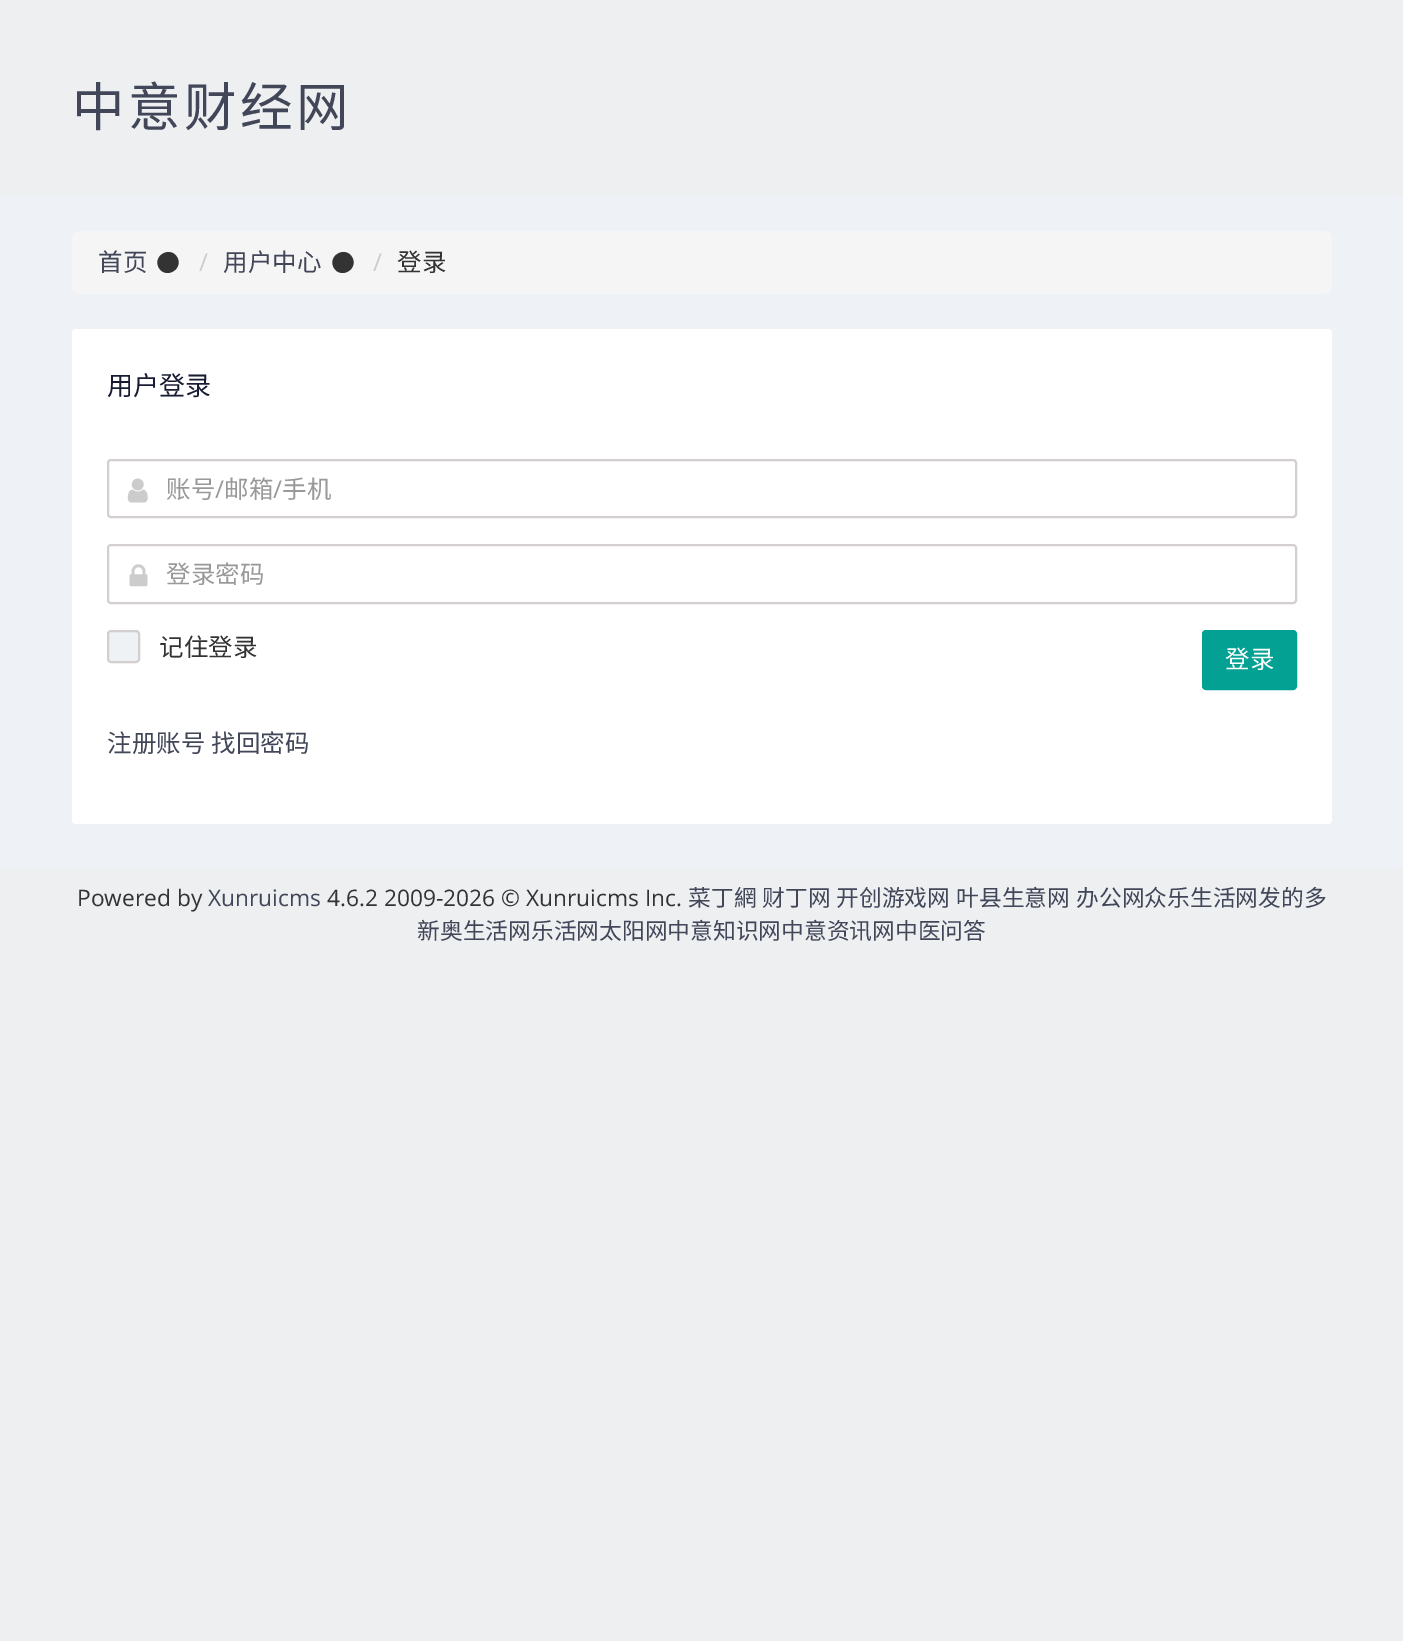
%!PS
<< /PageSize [1403 1641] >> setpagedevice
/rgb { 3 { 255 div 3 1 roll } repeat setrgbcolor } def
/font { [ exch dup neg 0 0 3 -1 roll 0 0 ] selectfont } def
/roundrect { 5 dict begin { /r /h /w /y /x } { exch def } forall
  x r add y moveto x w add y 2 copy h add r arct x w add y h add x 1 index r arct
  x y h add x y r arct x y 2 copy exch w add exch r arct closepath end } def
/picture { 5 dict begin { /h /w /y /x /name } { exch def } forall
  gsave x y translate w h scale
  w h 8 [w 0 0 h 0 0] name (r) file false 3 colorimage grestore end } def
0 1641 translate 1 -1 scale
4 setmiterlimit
237 239 241 rgb
0 0 1403 1641 rectfill
238 241 245 rgb
0 196 1403 672 rectfill
245 245 245 rgb
72 231 1260 63 7 roundrect fill
51 51 51 rgb
177 257 moveto 184 269 166 279.5 159 268 curveto 152 256 170 245.5 177 257 curveto closepath fill
352 257 moveto 359 269 341 279.5 334 268 curveto 327 256 345 245.5 352 257 curveto closepath fill
255 255 255 rgb
72 329 1260 495 4 roundrect fill
211 207 207 rgb
2 setlinewidth
108 460 1188 57 3 roundrect stroke
(img/1.rgb) 127 478 21 25 picture
108 545 1188 58 3 roundrect stroke
(img/2.rgb) 129 564 19 23 picture
239 242 245 rgb
108 631 31 31 3 roundrect gsave fill grestore
211 207 207 rgb
stroke
3 161 147 rgb
1203 631 93 58 3 roundrect gsave fill grestore
stroke
/NotoSansCJKSC-Regular 52.5 font
65 70 88 rgb
72 126 moveto 3.5 0 (中意财经网) ashow
/NotoSansCJKSC-Regular 24.5 font
98 271 moveto (首页) show
/OpenSans-Regular 24.5 font
204 204 204 rgb
199 271 moveto (/) show
/NotoSansCJKSC-Regular 24.5 font
65 70 88 rgb
223 271 moveto (用户中心) show
/OpenSans-Regular 24.5 font
204 204 204 rgb
373 271 moveto (/) show
/NotoSansCJKSC-Regular 24.5 font
51 51 51 rgb
397 271 moveto (登录) show
/NotoSansCJKSC-Regular 26 font
24 28 50 rgb
107 395 moveto (用户登录) show
/NotoSansCJKSC-Regular 24.5 font
153 153 153 rgb
166 498 moveto (账号) show
/OpenSans-Regular 24.5 font
215 498 moveto (/) show
/NotoSansCJKSC-Regular 24.5 font
224 498 moveto (邮箱) show
/OpenSans-Regular 24.5 font
273 498 moveto (/) show
/NotoSansCJKSC-Regular 24.5 font
282 498 moveto (手机) show
166 583 moveto (登录密码) show
51 51 51 rgb
159 656 moveto (记住登录) show
255 255 255 rgb
1225 668 moveto (登录) show
65 70 88 rgb
107 752 moveto (注册账号) show
211 752 moveto (找回密码) show
/OpenSans-Regular 22.75 font
51 51 51 rgb
77 906 moveto (Powered by) show
65 70 88 rgb
208 906 moveto (Xunruicms) show
51 51 51 rgb
327 906 moveto (4.6.2 2009-2026 © Xunruicms Inc.) show
/NotoSansCJKSC-Regular 22.75 font
65 70 88 rgb
[
  [(菜丁網) 688 906]
  [(财丁网) 762 906]
  [(开创游戏网) 836 906]
  [(叶县生意网) 956 906]
  [(办公网众乐生活网发的多) 1076 906]
  [(新奥生活网乐活网太阳网中意知识网中意资讯网中医问答) 417 939]
] { aload pop moveto show } forall
showpage
